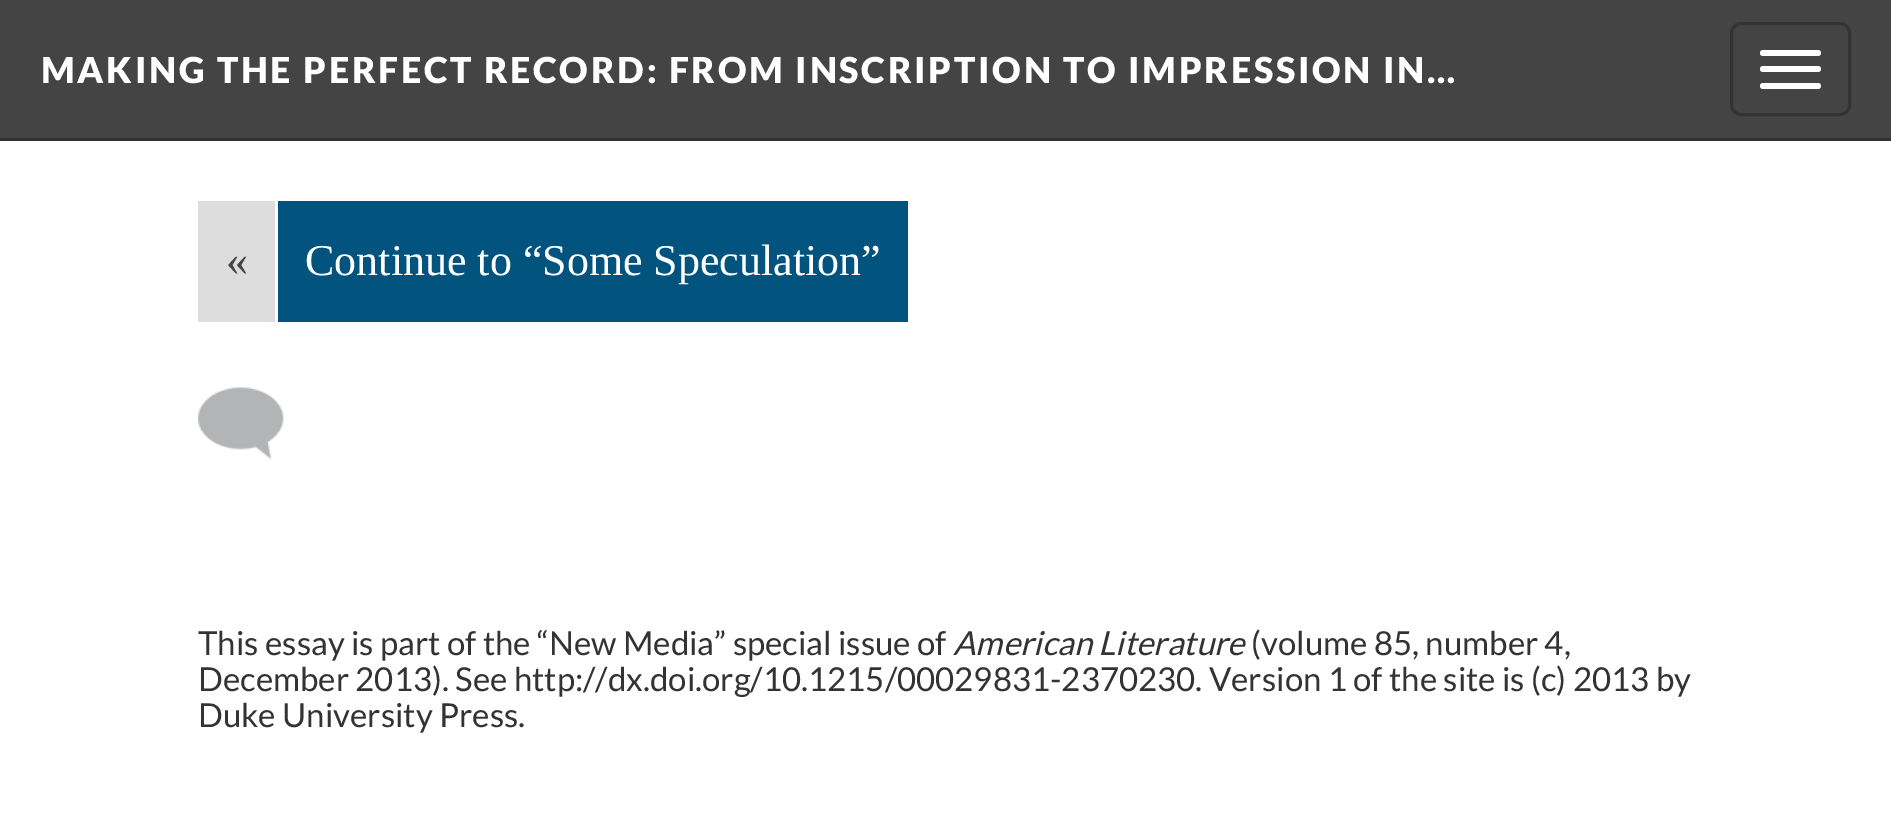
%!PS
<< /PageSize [1891 818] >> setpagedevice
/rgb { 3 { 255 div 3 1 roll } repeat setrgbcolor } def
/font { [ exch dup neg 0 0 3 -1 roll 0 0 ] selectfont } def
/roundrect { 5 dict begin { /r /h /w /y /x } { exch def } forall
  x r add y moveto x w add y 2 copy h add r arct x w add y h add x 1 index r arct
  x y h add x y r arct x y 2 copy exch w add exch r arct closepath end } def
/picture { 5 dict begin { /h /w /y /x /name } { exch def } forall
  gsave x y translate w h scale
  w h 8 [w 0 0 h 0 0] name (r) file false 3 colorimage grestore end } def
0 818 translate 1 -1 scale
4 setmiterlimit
255 255 255 rgb
0 0 1891 818 rectfill
68 68 68 rgb
0 0 1891 138 rectfill
51 51 51 rgb
0 138 1891 3 rectfill
3 setlinewidth
1731.5 23.5 118 91 9.5 roundrect stroke
255 255 255 rgb
1760 50 61 6 3 roundrect fill
1760 66 61 6 3 roundrect fill
1760 83 61 6 3 roundrect fill
221 221 221 rgb
198 201 77 121 rectfill
2 84 126 rgb
278 201 630 121 rectfill
(img/1.rgb) 198 387 86 72 picture
/Lato-Black 35.75 font
255 255 255 rgb
41 83 moveto 2.75 0 (MAKING THE PERFECT RECORD: FROM INSCRIPTION TO IMPRESSION IN…) ashow
/LiberationSerif-Regular 44 font
68 68 68 rgb
226 275 moveto («) show
255 255 255 rgb
305 275 moveto (Continue to “Some Speculation”) show
/Lato-Regular 33 font
51 51 51 rgb
198 655 moveto (This essay is part of the “New Media” special issue of) show
/Lato-Italic 33 font
953 655 moveto (American Literature) show
/Lato-Regular 33 font
[
  [(\(volume 85, number 4,) 1251 655]
  [(December 2013\). See http://dx.doi.org/10.1215/00029831-2370230. Version 1 of the site is \(c\) 2013 by) 198 691]
  [(Duke University Press.) 198 727]
] { aload pop moveto show } forall
showpage
